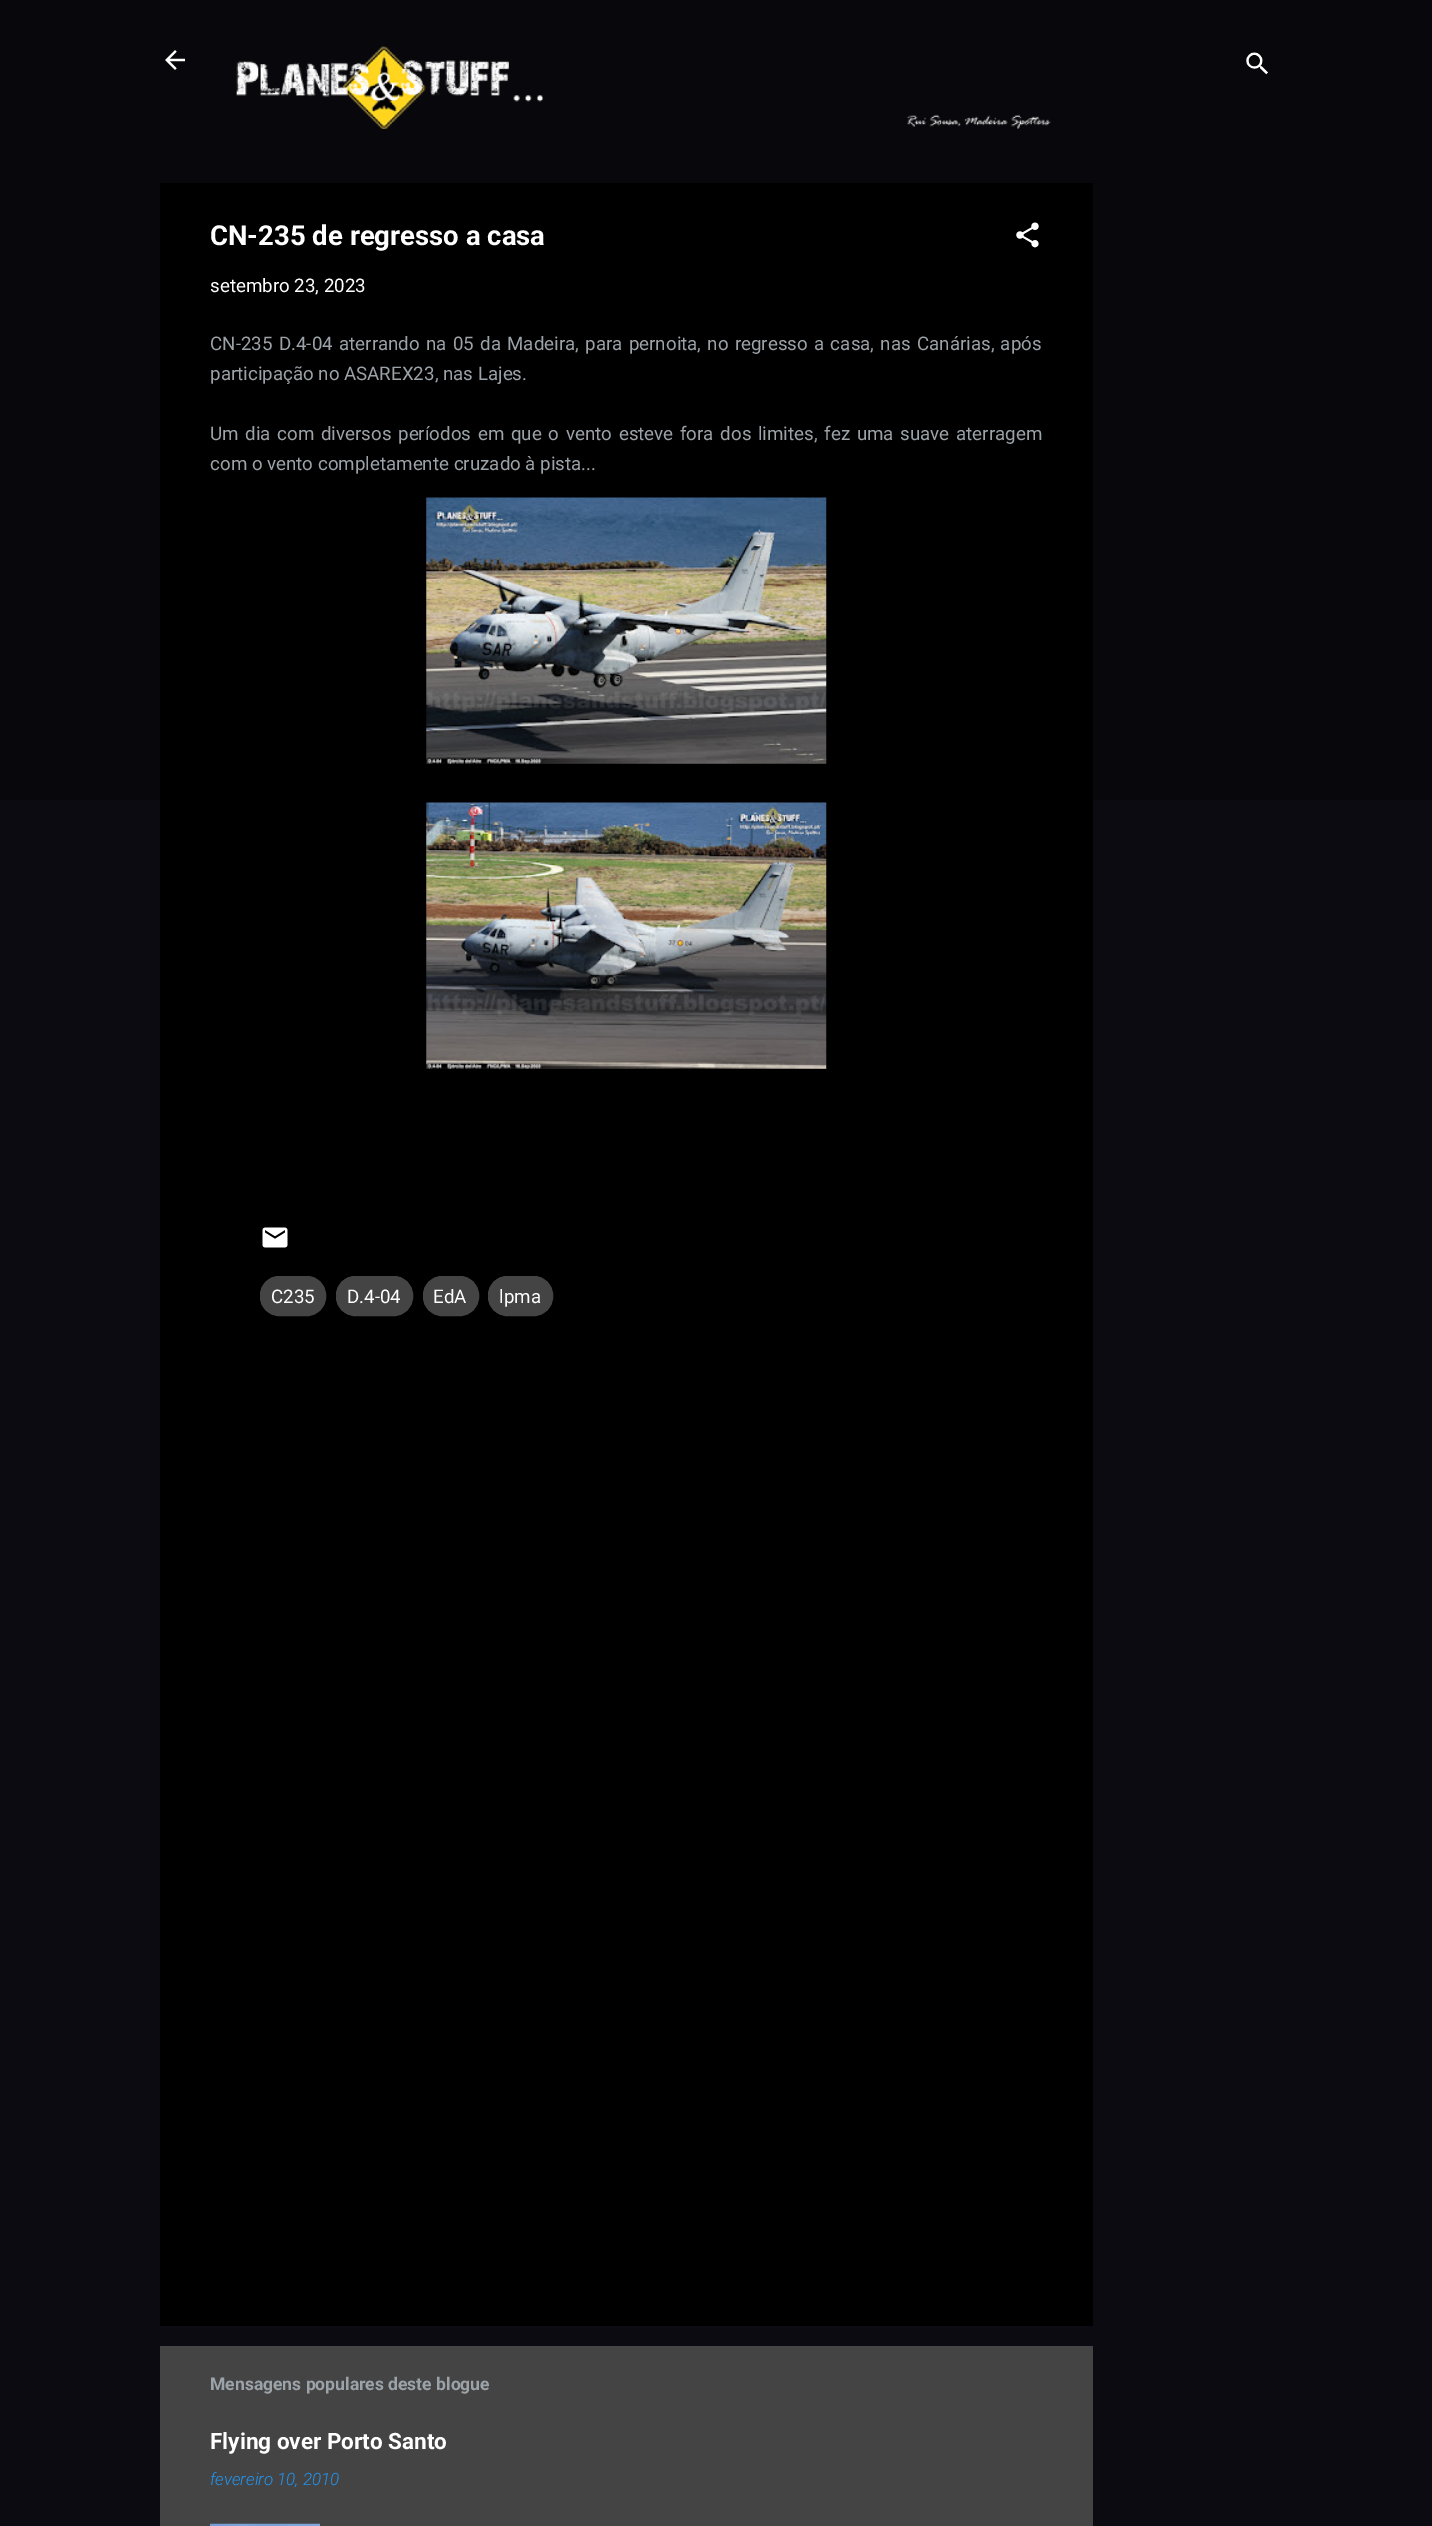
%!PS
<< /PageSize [1432 2526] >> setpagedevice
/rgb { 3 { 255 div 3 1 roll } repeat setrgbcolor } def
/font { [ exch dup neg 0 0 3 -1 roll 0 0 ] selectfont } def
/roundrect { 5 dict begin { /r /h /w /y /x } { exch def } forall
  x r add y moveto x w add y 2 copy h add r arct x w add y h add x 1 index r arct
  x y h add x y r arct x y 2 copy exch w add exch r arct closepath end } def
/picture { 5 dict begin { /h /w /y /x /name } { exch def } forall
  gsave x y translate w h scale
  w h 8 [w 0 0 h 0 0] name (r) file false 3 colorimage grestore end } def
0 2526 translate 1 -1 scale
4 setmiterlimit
11 11 17 rgb
0 0 1432 2526 rectfill
8 8 12 rgb
0 0 1432 800 rectfill
(img/1.rgb) 165 50 20 20 picture
(img/2.rgb) 236 46 815 83 picture
(img/3.rgb) 1246 52 22 23 picture
0 0 0 rgb
160 183 933 2143 rectfill
(img/4.rgb) 1016 222 23 26 picture
(img/5.rgb) 426 497 401 267 picture
(img/6.rgb) 426 802 401 267 picture
(img/7.rgb) 262 1227 26 21 picture
68 68 68 rgb
260.5 1276.5 65 39 18.5 roundrect gsave fill grestore
stroke
336.5 1276.5 76 39 18.5 roundrect gsave fill grestore
stroke
423.5 1276.5 55 39 18.5 roundrect gsave fill grestore
stroke
488.5 1276.5 64 39 18.5 roundrect gsave fill grestore
stroke
160 2346 933 180 rectfill
(img/8.rgb) 210 2523 110 3 picture
/Roboto-Bold 27.5 font
255 255 255 rgb
210 245 moveto (CN-235 de regresso a casa) show
/Roboto-Regular 18.75 font
210 292 moveto (setembro 23, 2023) show
155 162 168 rgb
210 350 moveto 1.6 0 32 (CN-235 D.4-04 aterrando na 05 da Madeira, para pernoita, no regresso a casa, nas Canárias, após) widthshow
210 380 moveto (participação no ASAREX23, nas Lajes.) show
210 440 moveto 2 0 32 (Um dia com diversos períodos em que o vento esteve fora dos limites, fez uma suave aterragem) widthshow
210 470 moveto (com o vento completamente cruzado à pista...) show
255 255 255 rgb
[
  [(C235) 271 1303]
  [(D.4-04) 347 1303]
  [(EdA) 433 1303]
  [(lpma) 499 1303]
] { aload pop moveto show } forall
/Roboto-Bold 17.5 font
155 162 168 rgb
210 2390 moveto (Mensagens populares deste blogue) show
/Roboto-Bold 22.5 font
255 255 255 rgb
210 2449 moveto (Flying over Porto Santo) show
/Roboto-LightItalic 17 font
33 150 243 rgb
210 2485 moveto (fevereiro 10, 2010) show
showpage
